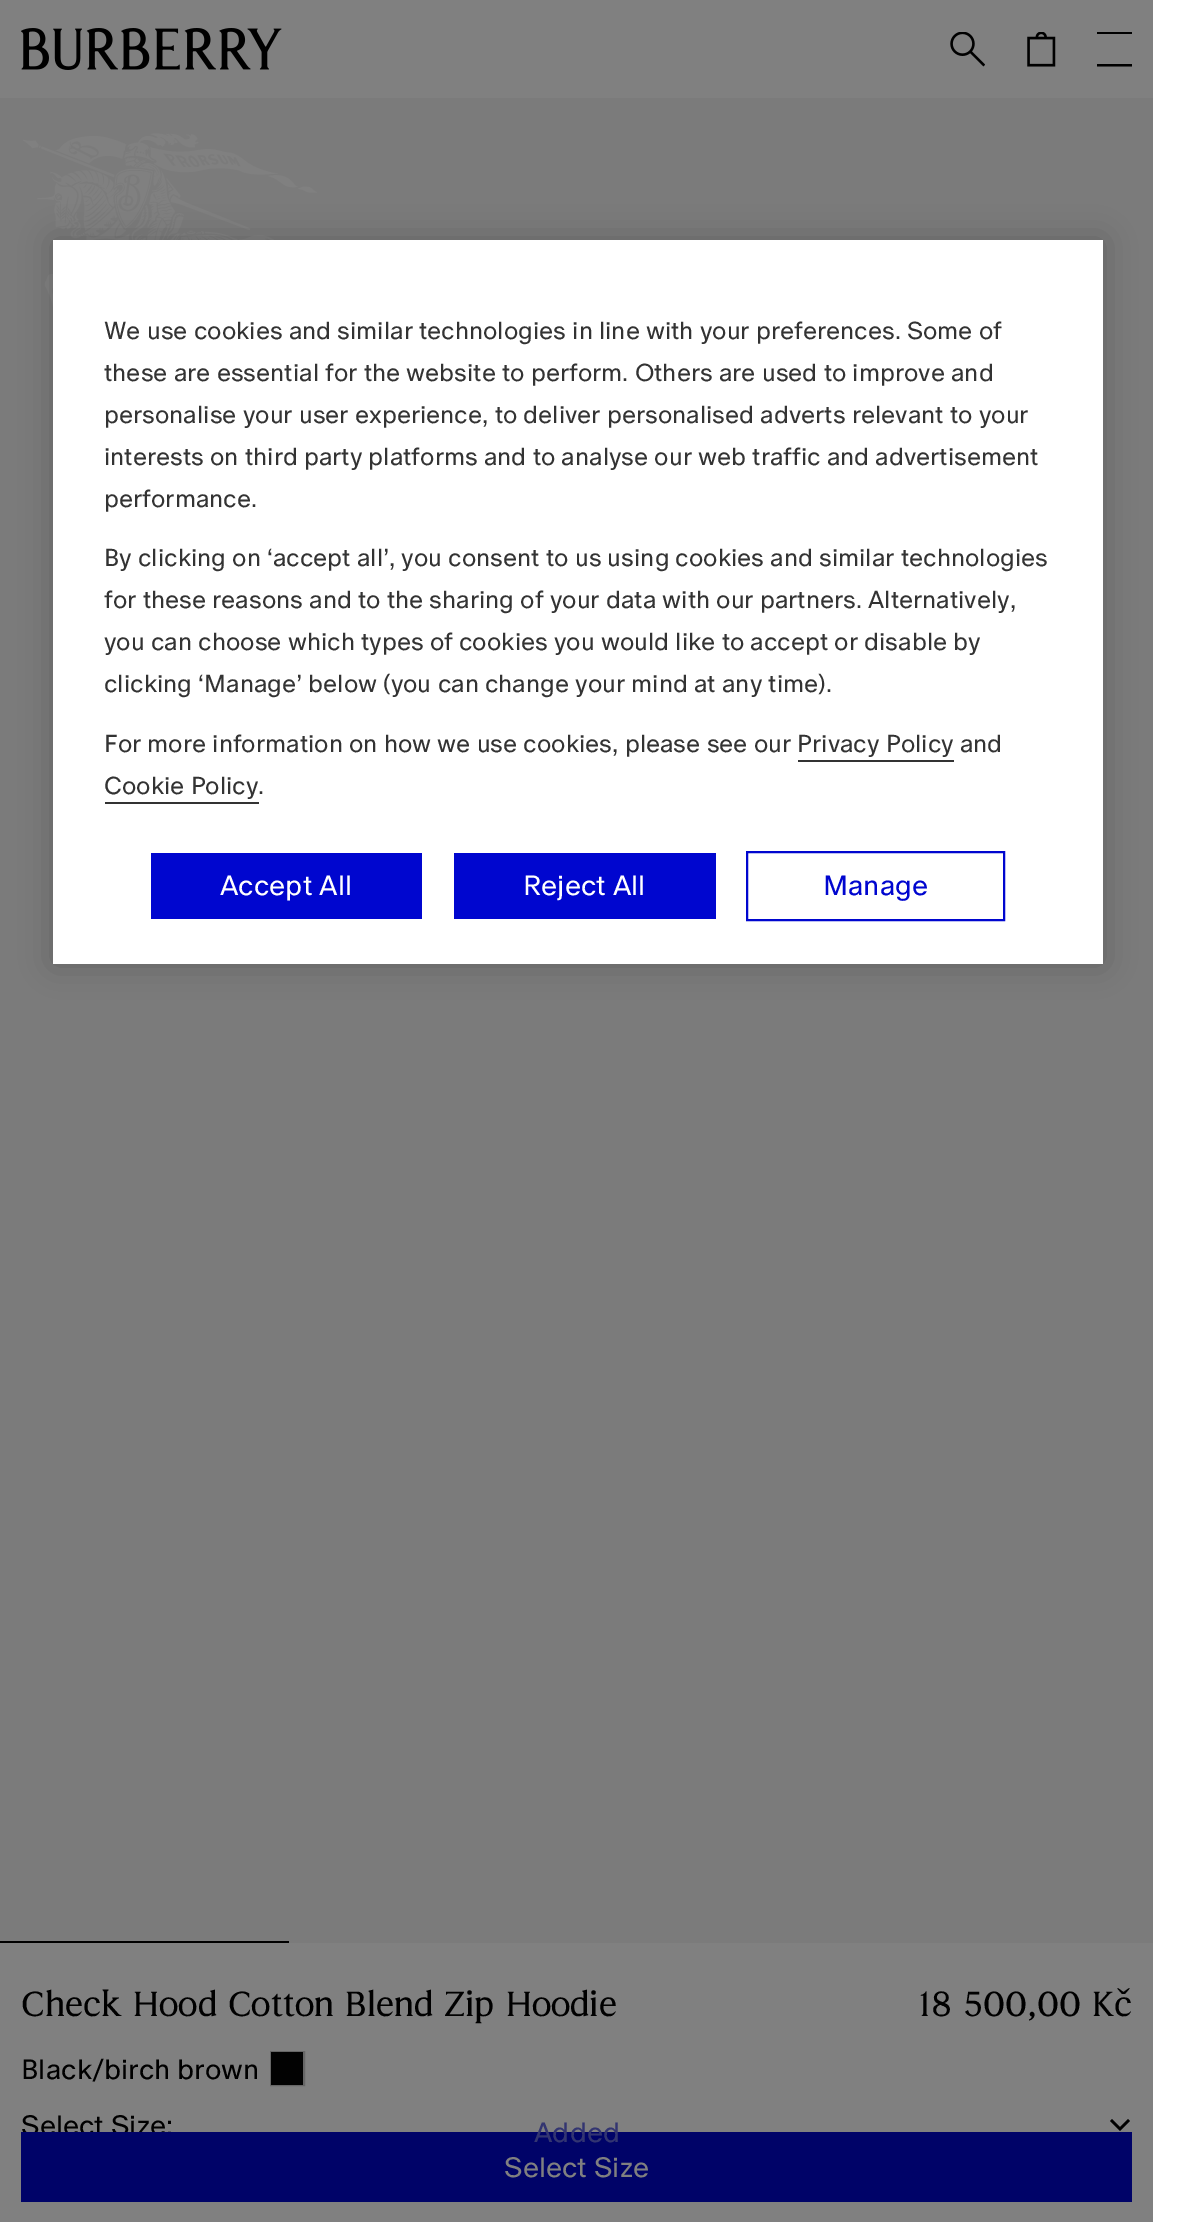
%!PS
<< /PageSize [1179 2222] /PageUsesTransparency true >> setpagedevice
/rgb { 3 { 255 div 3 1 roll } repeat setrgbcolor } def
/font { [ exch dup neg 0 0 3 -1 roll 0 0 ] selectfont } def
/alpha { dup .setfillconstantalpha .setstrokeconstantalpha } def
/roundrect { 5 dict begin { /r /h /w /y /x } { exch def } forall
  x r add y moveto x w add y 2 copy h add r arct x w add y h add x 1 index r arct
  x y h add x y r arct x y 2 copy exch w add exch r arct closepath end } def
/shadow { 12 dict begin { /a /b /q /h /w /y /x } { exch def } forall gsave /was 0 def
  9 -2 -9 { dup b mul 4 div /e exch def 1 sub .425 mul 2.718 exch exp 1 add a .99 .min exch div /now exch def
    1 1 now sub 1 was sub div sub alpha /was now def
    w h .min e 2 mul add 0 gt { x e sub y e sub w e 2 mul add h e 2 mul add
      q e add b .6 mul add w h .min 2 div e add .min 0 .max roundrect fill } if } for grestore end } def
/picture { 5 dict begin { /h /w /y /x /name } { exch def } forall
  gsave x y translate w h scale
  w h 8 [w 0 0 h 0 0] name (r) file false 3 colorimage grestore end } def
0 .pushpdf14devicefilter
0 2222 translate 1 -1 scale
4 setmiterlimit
255 255 255 rgb
0 0 1179 2222 rectfill
128 128 128 rgb
0 0 1153 98 rectfill
123 123 123 rgb
0 98 1153 1845 rectfill
(img/4.rgb) 23 133 294 174 picture
0 0 0 rgb
53 240 1050 724 0 16 0.2 shadow
[
  [53 240 1050 724 255 255 255]
  [798 760 156 2 51 51 51]
  [105 802 154 2 51 51 51]
  [151 853 271 66 0 6 207]
  [454 853 262 66 0 6 207]
] { aload pop rgb rectfill } forall
2 setlinewidth
747 852 257 68 rectstroke
(img/1.rgb) 21 28 261 42 picture
(img/2.rgb) 950 32 35 35 picture
(img/3.rgb) 1027 32 29 35 picture
gsave
1097 32 35 35 rectclip
0 0 0 rgb
1097 34 moveto 1132 34 lineto 1132 31.5 lineto 1097 31.5 lineto closepath 1097 66.5 moveto 1132 66.5 lineto 1132 64 lineto 1097 64 lineto closepath eofill
grestore
0 0 0 rgb
0 1941 289 2 rectfill
128 128 128 rgb
0 1943 1153 279 rectfill
102 102 102 rgb
271 2052 33 33 rectstroke
2 2 2 rgb
271 2052 32 33 rectfill
0 0 0 rgb
2.6 setlinewidth
1111 2120 moveto 1120 2129 lineto 1129 2120 lineto stroke
/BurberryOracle-Regular 24.5 font
51 51 51 rgb
[
  [(We use cookies and similar technologies in line with your preferences. Some of) 104 339]
  [(these are essential for the website to perform. Others are used to improve and) 104 381]
  [(personalise your user experience, to deliver personalised adverts relevant to your) 104 423]
  [(interests on third party platforms and to analyse our web traffic and advertisement) 104 465]
  [(performance.) 104 507]
  [(By clicking on ‘accept all’, you consent to us using cookies and similar technologies) 104 566]
  [(for these reasons and to the sharing of your data with our partners. Alternatively,) 104 608]
  [(you can choose which types of cookies you would like to accept or disable by) 104 650]
  [(clicking ‘Manage’ below \(you can change your mind at any time\).) 104 692]
  [(For more information on how we use cookies, please see our Privacy Policy and) 104 752]
  [(Cookie Policy.) 104 794]
] { aload pop moveto show } forall
/BurberryOracle-Regular 28 font
255 255 255 rgb
220 895 moveto (Accept All) show
523 895 moveto (Reject All) show
0 6 207 rgb
823 895 moveto (Manage) show
/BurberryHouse-Regular 35 font
0 0 0 rgb
21 2016 moveto (Check Hood Cotton Blend Zip Hoodie) show
918 2016 moveto (18 500,00 Kč) show
/BurberryOracle-Regular 28 font
21 2079 moveto (Black/birch brown) show
21 2135 moveto (Select Size:) show
0 3 104 rgb
21 2132 1111 70 rectfill
51 53 113 rgb
534 2142 moveto (Added) show
128 128 128 rgb
504 2177 moveto (Select Size) show
.poppdf14devicefilter showpage
